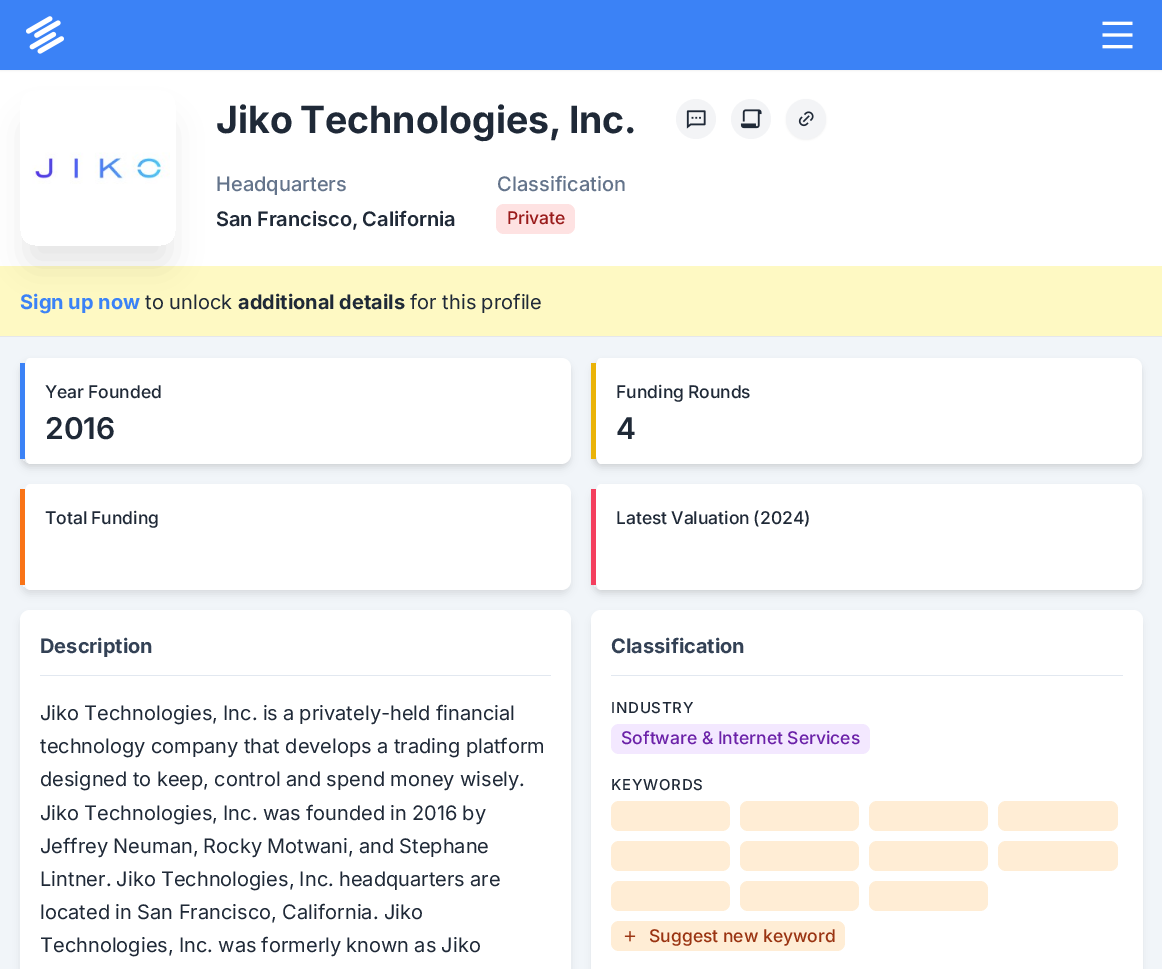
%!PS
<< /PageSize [1162 969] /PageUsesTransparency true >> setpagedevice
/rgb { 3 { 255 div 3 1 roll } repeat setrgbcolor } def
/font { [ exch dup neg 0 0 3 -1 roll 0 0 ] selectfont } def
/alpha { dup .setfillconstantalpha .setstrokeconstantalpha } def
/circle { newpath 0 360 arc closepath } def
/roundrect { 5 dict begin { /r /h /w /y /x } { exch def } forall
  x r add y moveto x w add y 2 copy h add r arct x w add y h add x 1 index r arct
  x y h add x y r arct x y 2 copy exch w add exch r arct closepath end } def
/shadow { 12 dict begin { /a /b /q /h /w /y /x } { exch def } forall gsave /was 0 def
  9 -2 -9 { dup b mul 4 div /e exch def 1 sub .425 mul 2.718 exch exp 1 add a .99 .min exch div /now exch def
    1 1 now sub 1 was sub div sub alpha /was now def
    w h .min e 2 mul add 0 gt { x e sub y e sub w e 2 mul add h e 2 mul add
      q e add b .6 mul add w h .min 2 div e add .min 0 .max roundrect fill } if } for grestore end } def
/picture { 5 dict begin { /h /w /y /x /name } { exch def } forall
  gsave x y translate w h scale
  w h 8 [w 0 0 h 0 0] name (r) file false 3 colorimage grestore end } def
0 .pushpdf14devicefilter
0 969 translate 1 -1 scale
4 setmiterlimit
255 255 255 rgb
0 0 1162 969 rectfill
0 0 0 rgb
0 1 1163 70 0 1 0.05 shadow
59 130 246 rgb
0 0 1162 70 rectfill
(img/1.rgb) 26 16 38 38 picture
(img/2.rgb) 1102 21 31 28 picture
254 249 195 rgb
0 266 1162 70 rectfill
gsave
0 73 moveto 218 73 lineto 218 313 lineto 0 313 lineto closepath 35 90 moveto 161 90 lineto 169.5 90 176 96.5 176 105 curveto 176 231 lineto 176 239.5 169.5 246 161 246 curveto 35 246 lineto 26.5 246 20 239.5 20 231 curveto 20 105 lineto 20 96.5 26.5 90 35 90 curveto closepath eoclip newpath
0 0 0 rgb
26 121 144 144 9 15.5 0.1 shadow
grestore
(img/3.rgb) 32 152 138 32 picture
243 244 246 rgb
696 119 20 circle fill
(img/4.rgb) 686 110 20 19 picture
751 119 20 circle fill
(img/5.rgb) 740 109 22 20 picture
0 0 0 rgb
786 100 40 40 20 1 0.05 shadow
243 244 246 rgb
806 119 20 circle fill
(img/6.rgb) 798 111 16 16 picture
254 226 226 rgb
496 204 79 30 8 roundrect fill
241 245 249 rgb
0 337 1162 632 rectfill
229 231 235 rgb
0 336 1162 1 rectfill
0 0 0 rgb
21 361 549 104 9 2.5 0.06 shadow
gsave
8 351 moveto 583 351 lineto 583 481 lineto 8 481 lineto closepath 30 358 moveto 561 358 lineto 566.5 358 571 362.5 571 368 curveto 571 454 lineto 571 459.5 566.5 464 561 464 curveto 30 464 lineto 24.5 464 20 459.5 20 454 curveto 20 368 lineto 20 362.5 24.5 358 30 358 curveto closepath eoclip newpath
21 364 549 104 9 4 0.1 shadow
grestore
255 255 255 rgb
30 358 moveto 561 358 lineto 567 358 571 362 571 368 curveto 571 454 lineto 571 459 567 464 561 464 curveto 30 464 lineto 27 464 25 459 25 454 curveto 25 368 lineto 25 362 27 358 30 358 curveto closepath fill
59 130 246 rgb
20 363 5 96 rectfill
0 0 0 rgb
593 361 548 104 9 2.5 0.06 shadow
593 364 548 104 9 4 0.1 shadow
255 255 255 rgb
601 358 moveto 1132 358 lineto 1138 358 1142 362 1142 368 curveto 1142 454 lineto 1142 459 1138 464 1132 464 curveto 601 464 lineto 598 464 596 459 596 454 curveto 596 368 lineto 596 362 598 358 601 358 curveto closepath fill
234 179 8 rgb
591 363 5 96 rectfill
gsave
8 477 moveto 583 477 lineto 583 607 lineto 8 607 lineto closepath 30 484 moveto 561 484 lineto 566.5 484 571 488.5 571 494 curveto 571 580 lineto 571 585.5 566.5 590 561 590 curveto 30 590 lineto 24.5 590 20 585.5 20 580 curveto 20 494 lineto 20 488.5 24.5 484 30 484 curveto closepath eoclip newpath
0 0 0 rgb
21 490 549 104 9 4 0.1 shadow
grestore
255 255 255 rgb
30 484 moveto 561 484 lineto 567 484 571 488 571 494 curveto 571 580 lineto 571 586 567 590 561 590 curveto 30 590 lineto 27 590 25 586 25 580 curveto 25 494 lineto 25 488 27 484 30 484 curveto closepath fill
249 115 22 rgb
20 489 5 96 rectfill
0 0 0 rgb
593 488 548 103 9 2.5 0.06 shadow
gsave
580 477 moveto 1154 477 lineto 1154 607 lineto 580 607 lineto closepath 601 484 moveto 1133 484 lineto 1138.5 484 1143 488.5 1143 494 curveto 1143 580 lineto 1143 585.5 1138.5 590 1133 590 curveto 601 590 lineto 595.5 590 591 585.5 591 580 curveto 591 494 lineto 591 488.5 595.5 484 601 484 curveto closepath eoclip newpath
593 490 548 104 9 4 0.1 shadow
grestore
255 255 255 rgb
601 484 moveto 1132 484 lineto 1138 484 1142 488 1142 494 curveto 1142 580 lineto 1142 586 1138 590 1132 590 curveto 601 590 lineto 598 590 596 586 596 580 curveto 596 494 lineto 596 488 598 484 601 484 curveto closepath fill
244 63 94 rgb
591 489 5 96 rectfill
0 0 0 rgb
21 616 549 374 9 4 0.1 shadow
255 255 255 rgb
30 610 moveto 561 610 lineto 566.5 610 571 614.5 571 620 curveto 571 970 lineto 20 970 lineto 20 620 lineto 20 614.5 24.5 610 30 610 curveto closepath fill
226 232 240 rgb
40 675 511 1 rectfill
0 0 0 rgb
593 616 548 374 9 4 0.1 shadow
255 255 255 rgb
601 610 moveto 1133 610 lineto 1138.5 610 1143 614.5 1143 620 curveto 1143 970 lineto 591 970 lineto 591 620 lineto 591 614.5 595.5 610 601 610 curveto closepath fill
226 232 240 rgb
611 675 512 1 rectfill
243 232 255 rgb
611 724 259 30 8 roundrect fill
255 237 213 rgb
611 801 119 30 8 roundrect fill
740 801 119 30 8 roundrect fill
869 801 119 30 8 roundrect fill
998 801 120 30 8 roundrect fill
611 841 119 30 8 roundrect fill
740 841 119 30 8 roundrect fill
869 841 119 30 8 roundrect fill
998 841 120 30 8 roundrect fill
611 881 119 30 8 roundrect fill
740 881 119 30 8 roundrect fill
869 881 119 30 8 roundrect fill
611 921 234 30 8 roundrect fill
(img/7.rgb) 624 931 12 11 picture
/Inter-Bold 37.5 font
31 41 55 rgb
216 133 moveto -2 0 32 (Jiko Technologies, Inc.) widthshow
/Inter-Medium 20 font
100 116 139 rgb
216 191 moveto (Headquarters) show
/Inter-SemiBold 20 font
31 41 55 rgb
216 226 moveto -1 0 32 (San Francisco, California) widthshow
/Inter-Medium 20 font
100 116 139 rgb
497 191 moveto (Classification) show
/Inter-Medium 17.5 font
153 27 27 rgb
507 224 moveto (Private) show
/Inter-Bold 20 font
59 130 246 rgb
20 309 moveto (Sign up now) show
/Inter-Regular 20 font
31 41 55 rgb
145 309 moveto (to unlock) show
/Inter-Bold 20 font
238 309 moveto (additional details) show
/Inter-Regular 20 font
410 309 moveto -0.25 0 32 (for this profile) widthshow
/Inter-Medium 17.5 font
45 398 moveto -1 0 32 (Year Founded) widthshow
/Inter-SemiBold 30 font
45 439 moveto (2016) show
/Inter-Medium 17.5 font
616 398 moveto -1 0 32 (Funding Rounds) widthshow
/Inter-SemiBold 30 font
616 439 moveto (4) show
/Inter-Medium 17.5 font
45 524 moveto -1 0 32 (Total Funding) widthshow
616 524 moveto -1 0 32 (Latest Valuation \(2024\)) widthshow
/Inter-Bold 20 font
51 65 85 rgb
40 653 moveto (Description) show
/Inter-Regular 20 font
31 41 55 rgb
40 720 moveto -0.5 0 32 (Jiko Technologies, Inc. is a privately-held financial) widthshow
40 753 moveto -0.25 0 32 (technology company that develops a trading platform) widthshow
40 786 moveto -0.25 0 32 (designed to keep, control and spend money wisely.) widthshow
40 820 moveto -0.5 0 32 (Jiko Technologies, Inc. was founded in 2016 by) widthshow
40 853 moveto -0.5 0 32 (Jeffrey Neuman, Rocky Motwani, and Stephane) widthshow
40 886 moveto -0.5 0 32 (Lintner. Jiko Technologies, Inc. headquarters are) widthshow
40 919 moveto -0.25 0 32 (located in San Francisco, California. Jiko) widthshow
40 952 moveto -0.5 0 32 (Technologies, Inc. was formerly known as Jiko) widthshow
/Inter-Bold 20 font
51 65 85 rgb
611 653 moveto (Classification) show
/Inter-Medium 15 font
31 41 55 rgb
611 713 moveto 0.75 0 (INDUSTRY) ashow
/Inter-Medium 17.5 font
107 33 168 rgb
621 744 moveto (Software & Internet Services) show
/Inter-Medium 15 font
31 41 55 rgb
611 790 moveto 0.75 0 (KEYWORDS) ashow
/Inter-Medium 17.5 font
154 52 18 rgb
649 942 moveto (Suggest new keyword) show
.poppdf14devicefilter showpage
